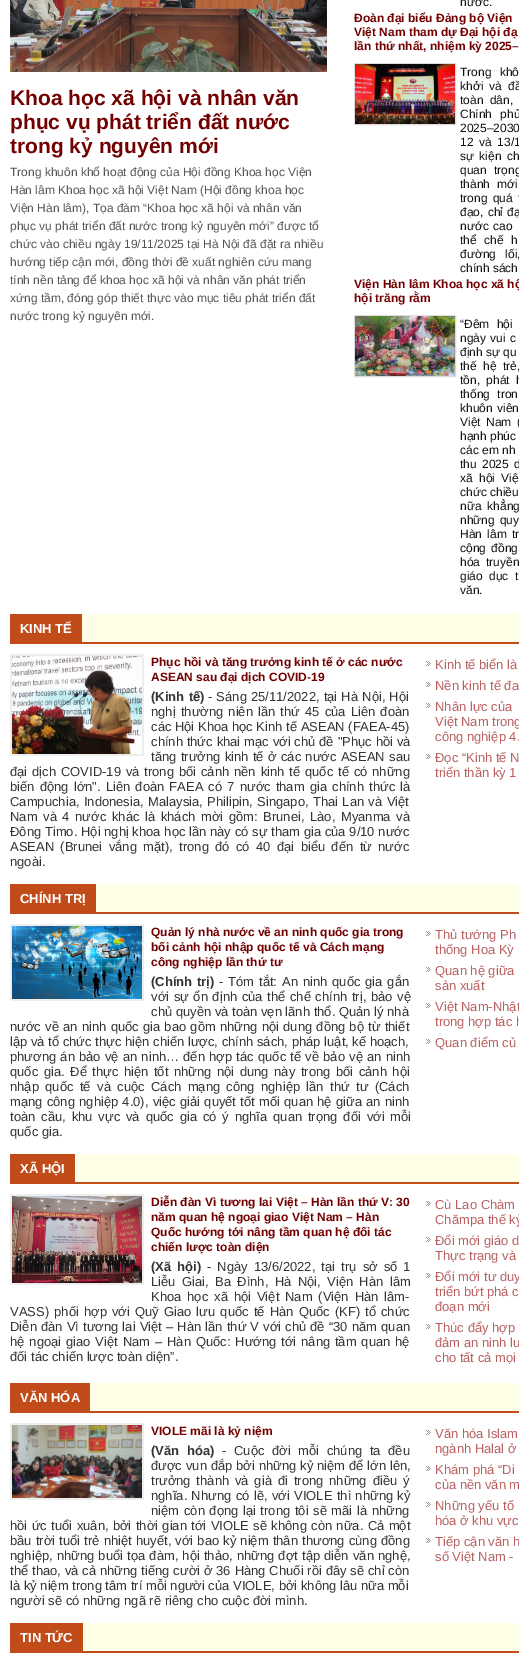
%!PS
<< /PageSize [519 1659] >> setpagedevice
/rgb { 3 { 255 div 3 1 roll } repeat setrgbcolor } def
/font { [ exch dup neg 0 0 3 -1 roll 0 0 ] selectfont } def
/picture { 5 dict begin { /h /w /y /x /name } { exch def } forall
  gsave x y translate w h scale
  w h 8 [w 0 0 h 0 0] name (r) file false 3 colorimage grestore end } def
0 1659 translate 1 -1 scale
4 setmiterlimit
255 255 255 rgb
0 0 519 1659 rectfill
(img/1.rgb) 10 0 317 72 picture
224 224 224 rgb
[1 1] 0 setdash
354 70.5 moveto 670 70.5 lineto stroke
221 221 221 rgb
[] 0 setdash
354.5 63.5 101 61 rectstroke
(img/2.rgb) 355 64 100 60 picture
354.5 315.5 101 61 rectstroke
(img/3.rgb) 355 316 100 60 picture
[
  [82 614 437 28 255 255 231]
  [10 642 509 2 194 76 25]
  [10 614 72 28 194 76 25]
  [10 654 134 102 238 238 238]
] { aload pop rgb rectfill } forall
(img/4.rgb) 12 656 130 98 picture
(img/5.rgb) 426 661 5 5 picture
(img/5.rgb) 426 682 5 5 picture
(img/5.rgb) 426 703 5 5 picture
(img/5.rgb) 426 754 5 5 picture
[
  [96 884 423 28 255 255 231]
  [10 912 509 2 194 76 25]
  [10 884 86 28 194 76 25]
  [10 924 134 77 238 238 238]
] { aload pop rgb rectfill } forall
(img/6.rgb) 12 926 130 73 picture
(img/5.rgb) 426 931 5 5 picture
(img/5.rgb) 426 967 5 5 picture
(img/5.rgb) 426 1003 5 5 picture
(img/5.rgb) 426 1039 5 5 picture
[
  [75 1154 444 28 255 255 231]
  [10 1182 509 2 194 76 25]
  [10 1154 65 28 194 76 25]
  [10 1194 134 91 238 238 238]
] { aload pop rgb rectfill } forall
(img/7.rgb) 12 1196 130 87 picture
(img/5.rgb) 426 1201 5 5 picture
(img/5.rgb) 426 1237 5 5 picture
(img/5.rgb) 426 1273 5 5 picture
(img/5.rgb) 426 1324 5 5 picture
[
  [90 1383 429 28 255 255 231]
  [10 1411 509 2 194 76 25]
  [10 1383 80 28 194 76 25]
  [10 1423 134 77 238 238 238]
] { aload pop rgb rectfill } forall
(img/8.rgb) 12 1425 130 73 picture
(img/5.rgb) 426 1430 5 5 picture
(img/5.rgb) 426 1466 5 5 picture
(img/5.rgb) 426 1502 5 5 picture
(img/5.rgb) 426 1538 5 5 picture
[
  [83 1623 436 28 255 255 231]
  [10 1651 509 2 194 76 25]
  [10 1623 73 28 194 76 25]
] { aload pop rgb rectfill } forall
/LiberationSans-Bold 21 font
115 0 0 rgb
[
  [(Khoa học xã hội và nhân văn) 10 105]
  [(phục vụ phát triển đất nước) 10 129]
  [(trong kỷ nguyên mới) 10 153]
] { aload pop moveto show } forall
/LiberationSans-Regular 12 font
85 85 85 rgb
[
  [(Trong khuôn khổ hoạt động của Hội đồng Khoa học Viện) 10 176]
  [(Hàn lâm Khoa học xã hội Việt Nam \(Hội đồng khoa học) 10 194]
  [(Viện Hàn lâm\), Tọa đàm “Khoa học xã hội và nhân văn) 10 212]
  [(phục vụ phát triển đất nước trong kỷ nguyên mới” được tổ) 10 230]
  [(chức vào chiều ngày 19/11/2025 tại Hà Nội đã đặt ra nhiều) 10 248]
  [(hướng tiếp cận mới, đồng thời đề xuất nghiên cứu mang) 10 266]
  [(tính nền tảng để khoa học xã hội và nhân văn phát triển) 10 284]
  [(xứng tầm, đóng góp thiết thực vào mục tiêu phát triển đất) 10 302]
  [(nước trong kỷ nguyên mới.) 10 320]
] { aload pop moveto show } forall
17 17 17 rgb
460 6 moveto (nước.) show
/LiberationSans-Bold 12 font
115 0 0 rgb
[
  [(Đoàn đại biểu Đảng bộ Viện) 354 22]
  [(Việt Nam tham dự Đại hội đạ) 354 36]
  [(lần thứ nhất, nhiệm kỳ 2025–) 354 50]
] { aload pop moveto show } forall
/LiberationSans-Regular 12 font
17 17 17 rgb
460 76 moveto 5 0 32 (Trong khô) widthshow
460 90 moveto 2.75 0 32 (khởi và đầ) widthshow
460 104 moveto 3 0 32 (toàn dân,) widthshow
460 118 moveto 5 0 32 (Chính phủ) widthshow
460 132 moveto 1.5 0 32 (2025–2030) widthshow
460 146 moveto 2.25 0 32 (12 và 13/1) widthshow
460 160 moveto 2 0 32 (sự kiện ch) widthshow
460 174 moveto 4 0 32 (quan trọng) widthshow
460 188 moveto 4 0 32 (thành mới) widthshow
460 202 moveto 2 0 32 (trong quá t) widthshow
460 216 moveto 1 0 32 (đạo, chỉ đạ) widthshow
460 230 moveto 1 0 32 (nước cao) widthshow
460 244 moveto 4 0 32 (thể chế h) widthshow
460 258 moveto 6 0 32 (đường lối,) widthshow
460 272 moveto (chính sách) show
/LiberationSans-Bold 12 font
115 0 0 rgb
354 288 moveto (Viện Hàn lâm Khoa học xã hộ) show
354 302 moveto (hội trăng rằm) show
/LiberationSans-Regular 12 font
17 17 17 rgb
460 328 moveto 4 0 32 (“Đêm hội) widthshow
460 342 moveto 1 0 32 (ngày vui c) widthshow
460 356 moveto (định sự qu) show
460 370 moveto 3 0 32 (thế hệ trẻ,) widthshow
460 384 moveto 3 0 32 (tồn, phát h) widthshow
460 398 moveto 4 0 32 (thống tron) widthshow
460 412 moveto 1 0 32 (khuôn viên) widthshow
460 426 moveto 2 0 32 (Việt Nam \() widthshow
460 440 moveto (hạnh phúc) show
460 454 moveto (các em nh) show
460 468 moveto 2 0 32 (thu 2025 d) widthshow
460 482 moveto 3 0 32 (xã hội Việ) widthshow
460 496 moveto 0.1 0 32 (chức chiều) widthshow
460 510 moveto 2.5 0 32 (nữa khẳng) widthshow
460 524 moveto 1.5 0 32 (những quy) widthshow
460 538 moveto 2 0 32 (Hàn lâm tr) widthshow
460 552 moveto 2 0 32 (cộng đồng) widthshow
460 566 moveto 2.75 0 32 (hóa truyền) widthshow
460 580 moveto 3 0 32 (giáo dục t) widthshow
460 594 moveto (văn.) show
/LiberationSans-Bold 13 font
255 255 255 rgb
20 633 moveto (KINH TẾ) show
/LiberationSans-Bold 12 font
115 0 0 rgb
151 666 moveto (Phục hồi và tăng trưởng kinh tế ở các nước) show
151 681 moveto (ASEAN sau đại dịch COVID-19) show
/LiberationSans-Bold 13 font
51 51 51 rgb
151 701 moveto 1 0 32 (\(Kinh tế\)) widthshow
/LiberationSans-Regular 13 font
208 701 moveto 0.5 0 32 (- Sáng 25/11/2022, tại Hà Nội, Hội) widthshow
151 716 moveto 1.5 0 32 (nghị thường niên lần thứ 45 của Liên đoàn) widthshow
151 731 moveto (các Hội Khoa học Kinh tế ASEAN \(FAEA-45\)) show
151 746 moveto 0.25 0 32 (chính thức khai mạc với chủ đề "Phục hồi và) widthshow
151 761 moveto 0.75 0 32 (tăng trưởng kinh tế ở các nước ASEAN sau) widthshow
10 776 moveto 1.25 0 32 (đại dịch COVID-19 và trong bối cảnh nền kinh tế quốc tế có những) widthshow
10 791 moveto 1.5 0 32 (biến động lớn". Liên đoàn FAEA có 7 nước tham gia chính thức là) widthshow
10 806 moveto 0.75 0 32 (Campuchia, Indonesia, Malaysia, Philipin, Singapo, Thai Lan và Việt) widthshow
10 821 moveto 2 0 32 (Nam và 4 nước khác là khách mời gồm: Brunei, Lào, Myanma và) widthshow
10 836 moveto 0.1 0 32 (Đông Timo. Hội nghị khoa học lần này có sự tham gia của 9/10 nước) widthshow
10 851 moveto 2.75 0 32 (ASEAN \(Brunei vắng mặt\), trong đó có 40 đại biểu đến từ nước) widthshow
10 866 moveto (ngoài.) show
186 97 98 rgb
[
  [(Kinh tế biển là) 435 669]
  [(Nền kinh tế đa) 435 690]
  [(Nhân lực của) 435 711]
  [(Việt Nam trong) 435 726]
  [(công nghiệp 4.) 435 741]
  [(Đọc “Kinh tế N) 435 762]
  [(triển thần kỳ 1) 435 777]
] { aload pop moveto show } forall
/LiberationSans-Bold 13 font
255 255 255 rgb
20 903 moveto (CHÍNH TRỊ) show
/LiberationSans-Bold 12 font
115 0 0 rgb
[
  [(Quản lý nhà nước về an ninh quốc gia trong) 151 936]
  [(bối cảnh hội nhập quốc tế và Cách mạng) 151 951]
  [(công nghiệp lần thứ tư) 151 966]
] { aload pop moveto show } forall
/LiberationSans-Bold 13 font
51 51 51 rgb
151 986 moveto 1 0 32 (\(Chính trị\)) widthshow
/LiberationSans-Regular 13 font
219 986 moveto 1.25 0 32 (- Tóm tắt: An ninh quốc gia gắn) widthshow
151 1001 moveto 1 0 32 (với sự ổn định của thể chế chính trị, bảo vệ) widthshow
151 1016 moveto (chủ quyền và toàn vẹn lãnh thổ. Quản lý nhà) show
10 1031 moveto 0.6 0 32 (nước về an ninh quốc gia bao gồm những nội dung đồng bộ từ thiết) widthshow
10 1046 moveto (lập và tổ chức thực hiện chiến lược, chính sách, pháp luật, kế hoạch,) show
10 1061 moveto 0.6 0 32 (phương án bảo vệ an ninh… đến hợp tác quốc tế về bảo vệ an ninh) widthshow
10 1076 moveto 1.9 0 32 (quốc gia. Để thực hiện tốt những nội dung này trong bối cảnh hội) widthshow
10 1091 moveto 2.75 0 32 (nhập quốc tế và cuộc Cách mạng công nghiệp lần thứ tư \(Cách) widthshow
10 1106 moveto 0.6 0 32 (mạng công nghiệp 4.0\), việc giải quyết tốt mối quan hệ giữa an ninh) widthshow
10 1121 moveto 2.25 0 32 (toàn cầu, khu vực và quốc gia có ý nghĩa quan trọng đối với mỗi) widthshow
10 1136 moveto (quốc gia.) show
186 97 98 rgb
[
  [(Thủ tướng Ph) 435 939]
  [(thống Hoa Kỳ) 435 954]
  [(Quan hệ giữa) 435 975]
  [(sản xuất) 435 990]
  [(Việt Nam-Nhật) 435 1011]
  [(trong hợp tác h) 435 1026]
  [(Quan điểm củ) 435 1047]
] { aload pop moveto show } forall
/LiberationSans-Bold 13 font
255 255 255 rgb
20 1173 moveto (XÃ HỘI) show
/LiberationSans-Bold 12 font
115 0 0 rgb
[
  [(Diễn đàn Vì tương lai Việt – Hàn lần thứ V: 30) 151 1206]
  [(năm quan hệ ngoại giao Việt Nam – Hàn) 151 1221]
  [(Quốc hướng tới nâng tầm quan hệ đối tác) 151 1236]
  [(chiến lược toàn diện) 151 1251]
] { aload pop moveto show } forall
/LiberationSans-Bold 13 font
51 51 51 rgb
151 1271 moveto 2.5 0 32 (\(Xã hội\)) widthshow
/LiberationSans-Regular 13 font
207 1271 moveto 2.5 0 32 (- Ngày 13/6/2022, tại trụ sở số 1) widthshow
151 1286 moveto 2.75 0 32 (Liễu Giai, Ba Đình, Hà Nội, Viện Hàn lâm) widthshow
151 1301 moveto 2.25 0 32 (Khoa học xã hội Việt Nam \(Viện Hàn lâm-) widthshow
10 1316 moveto 1.5 0 32 (VASS\) phối hợp với Quỹ Giao lưu quốc tế Hàn Quốc \(KF\) tổ chức) widthshow
10 1331 moveto 0.5 0 32 (Diễn đàn Vì tương lai Việt – Hàn lần thứ V với chủ đề “30 năm quan) widthshow
10 1346 moveto 1.25 0 32 (hệ ngoại giao Việt Nam – Hàn Quốc: Hướng tới nâng tầm quan hệ) widthshow
10 1361 moveto (đối tác chiến lược toàn diện”.) show
186 97 98 rgb
[
  [(Cù Lao Chàm) 435 1209]
  [(Chămpa thế kỷ) 435 1224]
  [(Đổi mới giáo d) 435 1245]
  [(Thực trạng và) 435 1260]
  [(Đổi mới tư duy) 435 1281]
  [(triển bứt phá c) 435 1296]
  [(đoạn mới) 435 1311]
  [(Thúc đẩy hợp) 435 1332]
  [(đảm an ninh lư) 435 1347]
  [(cho tất cả mọi) 435 1362]
] { aload pop moveto show } forall
/LiberationSans-Bold 13 font
255 255 255 rgb
20 1402 moveto (VĂN HÓA) show
/LiberationSans-Bold 12 font
115 0 0 rgb
151 1435 moveto (VIOLE mãi là kỷ niệm) show
/LiberationSans-Bold 13 font
51 51 51 rgb
151 1455 moveto 4 0 32 (\(Văn hóa\)) widthshow
/LiberationSans-Regular 13 font
222 1455 moveto 4 0 32 (- Cuộc đời mỗi chúng ta đều) widthshow
151 1470 moveto 0.25 0 32 (được vun đắp bởi những kỷ niệm để lớn lên,) widthshow
151 1485 moveto 2.25 0 32 (trưởng thành và già đi trong những điều ý) widthshow
151 1500 moveto 0.75 0 32 (nghĩa. Nhưng có lẽ, với VIOLE thì những kỷ) widthshow
151 1515 moveto 1 0 32 (niệm còn đọng lại trong tôi sẽ mãi là những) widthshow
10 1530 moveto 0.75 0 32 (hồi ức tuổi xuân, bởi thời gian tới VIOLE sẽ không còn nữa. Cả một) widthshow
10 1545 moveto 0.5 0 32 (bầu trời tuổi trẻ nhiệt huyết, với bao kỷ niệm thân thương cùng đồng) widthshow
10 1560 moveto 0.5 0 32 (nghiệp, những buổi tọa đàm, hội thảo, những đợt tập diễn văn nghệ,) widthshow
10 1575 moveto 0.25 0 32 (thể thao, và cả những tiếng cười ở 36 Hàng Chuối rồi đây sẽ chỉ còn) widthshow
10 1590 moveto (là kỷ niệm trong tâm trí mỗi người của VIOLE, bởi không lâu nữa mỗi) show
10 1605 moveto (người sẽ có những ngã rẽ riêng cho cuộc đời mình.) show
186 97 98 rgb
[
  [(Văn hóa Islam) 435 1438]
  [(ngành Halal ở) 435 1453]
  [(Khám phá “Di) 435 1474]
  [(của nền văn m) 435 1489]
  [(Những yếu tố) 435 1510]
  [(hóa ở khu vực) 435 1525]
  [(Tiếp cận văn h) 435 1546]
  [(số Việt Nam -) 435 1561]
] { aload pop moveto show } forall
/LiberationSans-Bold 13 font
255 255 255 rgb
20 1642 moveto (TIN TỨC) show
showpage
